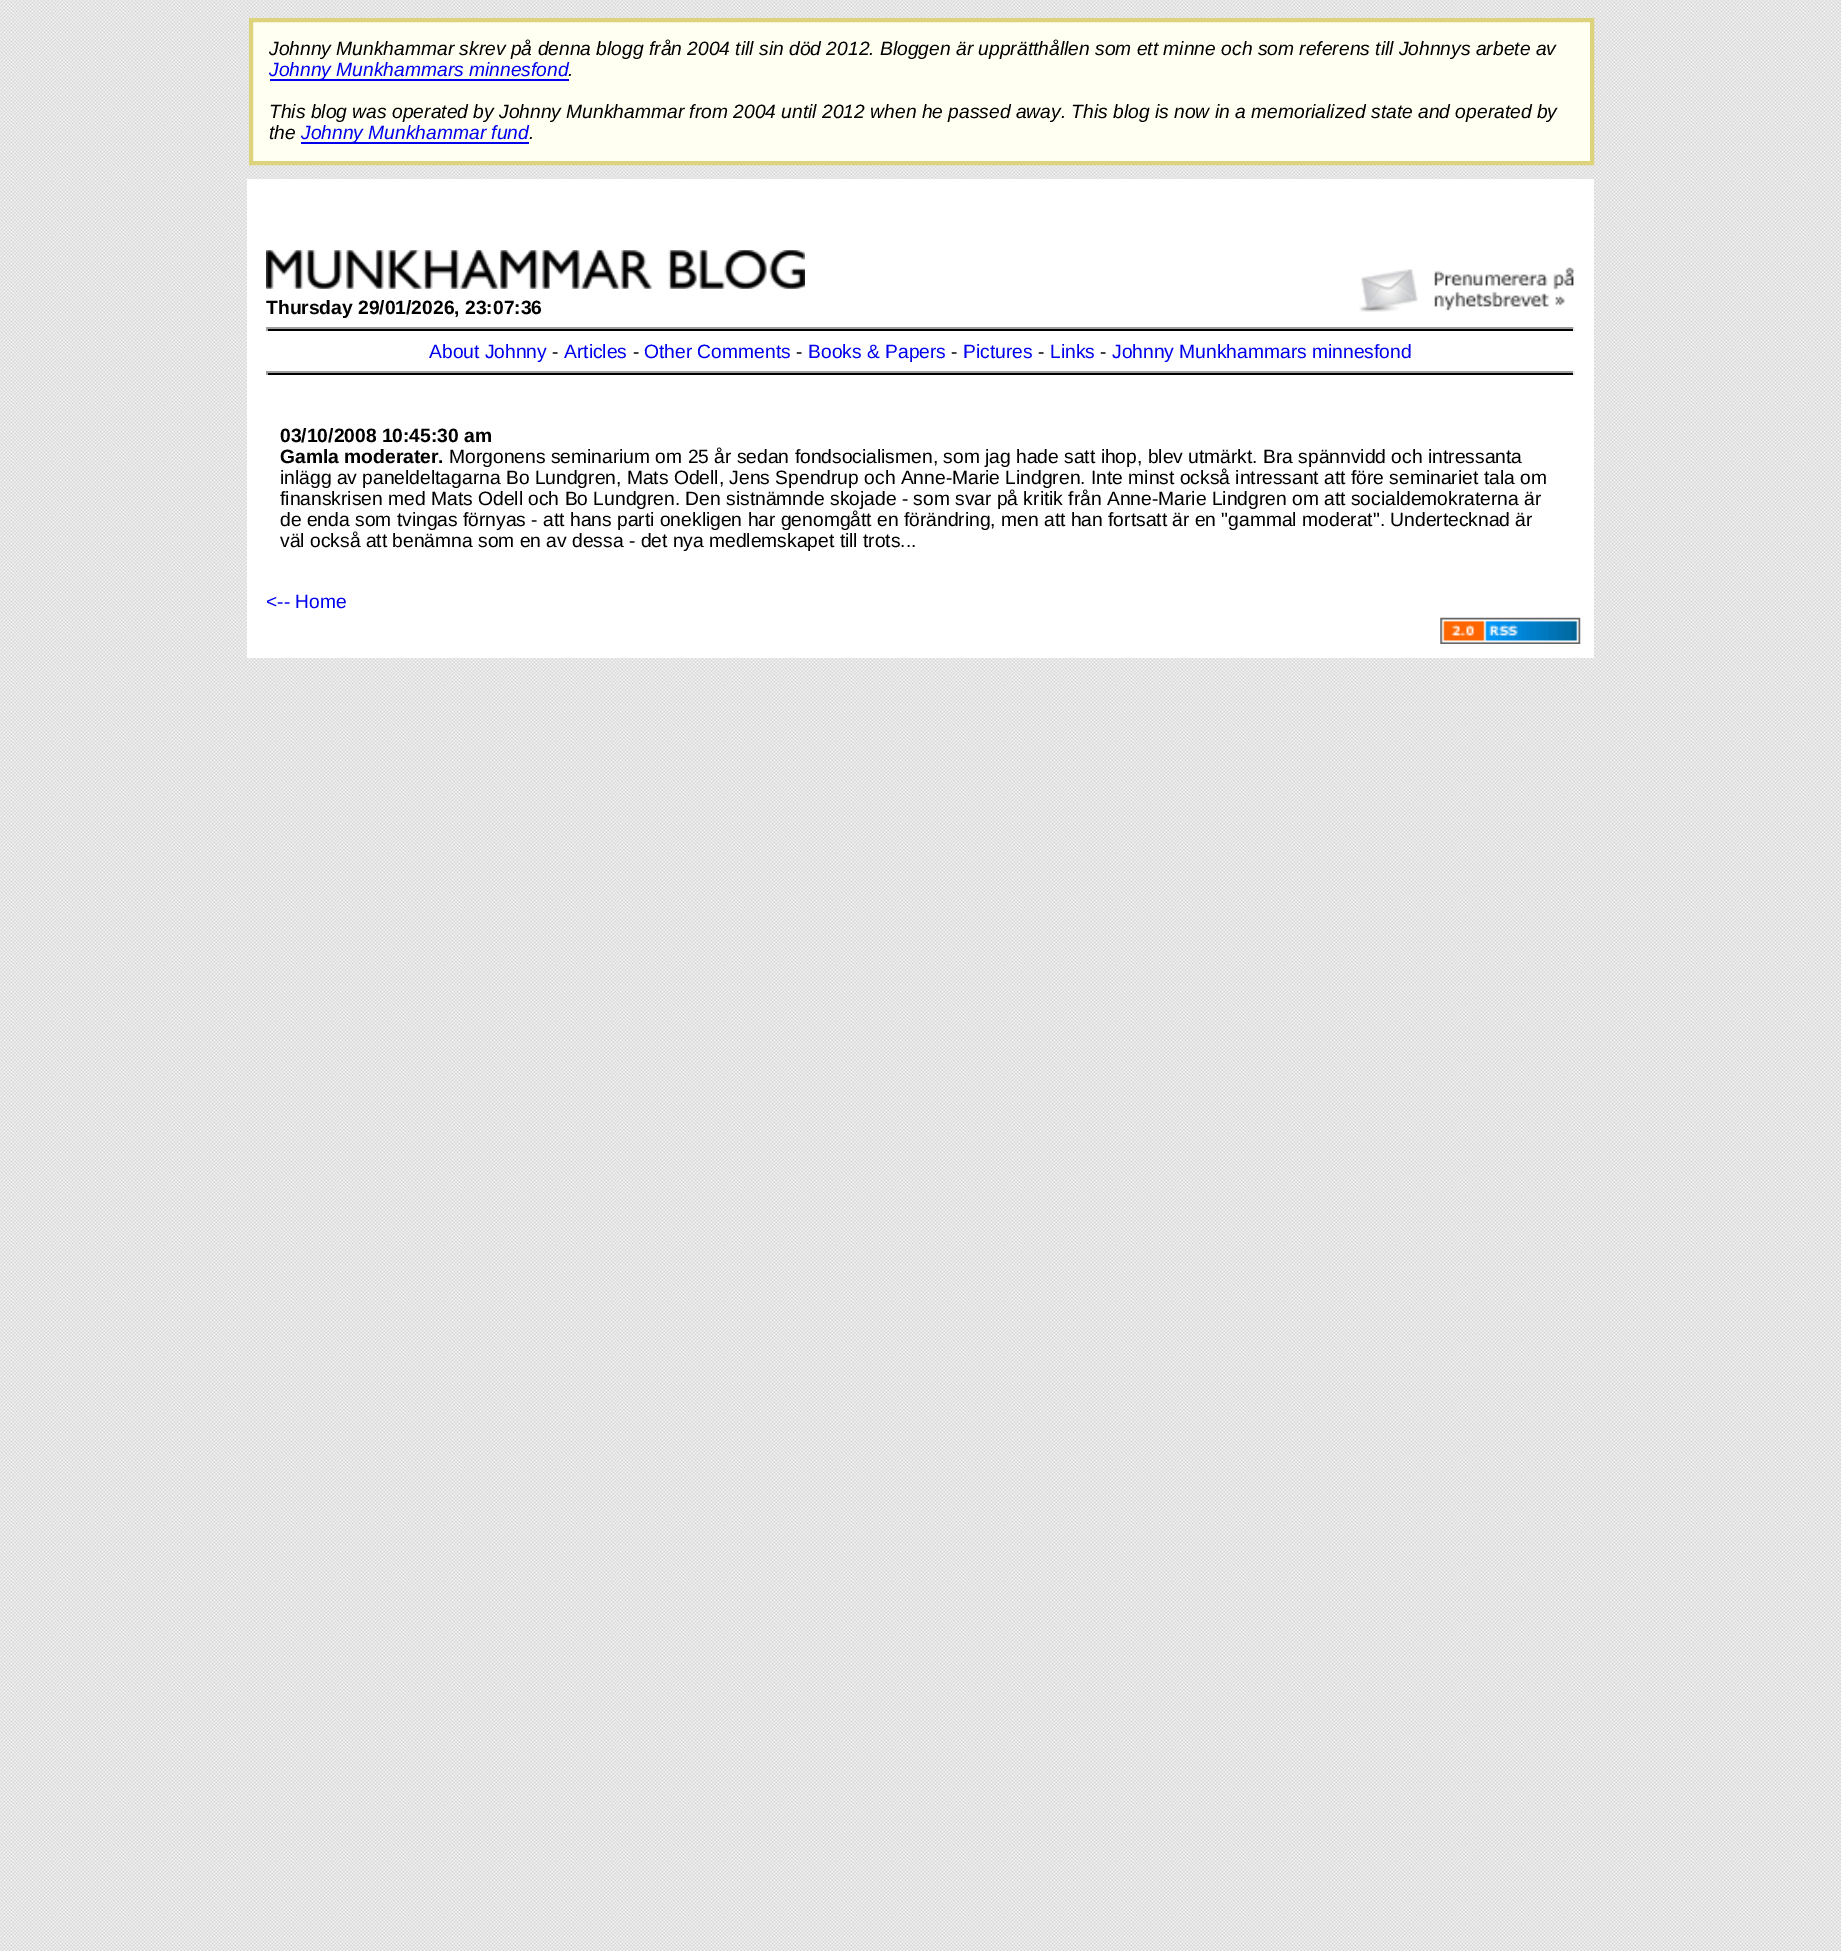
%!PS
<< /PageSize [1841 1951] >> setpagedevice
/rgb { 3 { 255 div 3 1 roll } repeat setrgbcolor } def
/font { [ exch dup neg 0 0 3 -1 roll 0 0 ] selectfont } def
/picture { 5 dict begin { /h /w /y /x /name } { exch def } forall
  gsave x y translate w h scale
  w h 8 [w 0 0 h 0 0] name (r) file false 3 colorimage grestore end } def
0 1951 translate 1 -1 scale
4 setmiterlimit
255 255 255 rgb
0 0 1841 1951 rectfill
(img/1.rgb) 0 0 1841 1951 picture
255 255 242 rgb
251 20 moveto 1592 20 lineto 1592 163 lineto 251 163 lineto closepath gsave fill grestore
220 211 124 rgb
4 setlinewidth
stroke
[
  [270 79 299 2 0 0 238]
  [301 142 228 2 0 0 238]
  [247 179 1347 479 255 255 255]
] { aload pop rgb rectfill } forall
(img/2.rgb) 266 250 539 39 picture
(img/3.rgb) 1359 267 215 45 picture
[
  [266 329 1309 2 0 0 0]
  [266 327 1309 2 159 159 159]
  [1573 327 2 4 238 238 238]
  [266 327 2 4 159 159 159]
  [266 373 1309 2 0 0 0]
  [266 371 1309 2 159 159 159]
  [1573 371 2 4 238 238 238]
  [266 371 2 4 159 159 159]
] { aload pop rgb rectfill } forall
(img/4.rgb) 1440 617 141 27 picture
/LiberationSans-Italic 19.25 font
0 0 0 rgb
269 55 moveto (Johnny Munkhammar skrev på denna blogg från 2004 till sin död 2012. Bloggen är upprätthållen som ett minne och som referens till Johnnys arbete av) show
0 0 238 rgb
269 76 moveto (Johnny Munkhammars minnesfond) show
0 0 0 rgb
[
  [(.) 568 76]
  [(This blog was operated by Johnny Munkhammar from 2004 until 2012 when he passed away. This blog is now in a memorialized state and operated by) 269 118]
  [(the) 269 139]
] { aload pop moveto show } forall
0 0 238 rgb
301 139 moveto (Johnny Munkhammar fund) show
0 0 0 rgb
529 139 moveto (.) show
/LiberationSans-Bold 19.25 font
266 314 moveto (Thursday 29/01/2026, 23:07:36) show
/LiberationSans-Regular 19.25 font
0 0 238 rgb
429 358 moveto (About Johnny) show
0 0 0 rgb
552 358 moveto (-) show
0 0 238 rgb
564 358 moveto (Articles) show
0 0 0 rgb
633 358 moveto (-) show
0 0 238 rgb
644 358 moveto (Other Comments) show
0 0 0 rgb
796 358 moveto (-) show
0 0 238 rgb
808 358 moveto (Books & Papers) show
0 0 0 rgb
951 358 moveto (-) show
0 0 238 rgb
963 358 moveto (Pictures) show
0 0 0 rgb
1038 358 moveto (-) show
0 0 238 rgb
1050 358 moveto (Links) show
0 0 0 rgb
1100 358 moveto (-) show
0 0 238 rgb
1112 358 moveto (Johnny Munkhammars minnesfond) show
/LiberationSans-Bold 19.25 font
0 0 0 rgb
280 442 moveto (03/10/2008 10:45:30 am) show
280 463 moveto (Gamla moderater.) show
/LiberationSans-Regular 19.25 font
[
  [(Morgonens seminarium om 25 år sedan fondsocialismen, som jag hade satt ihop, blev utmärkt. Bra spännvidd och intressanta) 449 463]
  [(inlägg av paneldeltagarna Bo Lundgren, Mats Odell, Jens Spendrup och Anne-Marie Lindgren. Inte minst också intressant att före seminariet tala om) 280 484]
  [(finanskrisen med Mats Odell och Bo Lundgren. Den sistnämnde skojade - som svar på kritik från Anne-Marie Lindgren om att socialdemokraterna är) 280 505]
  [(de enda som tvingas förnyas - att hans parti onekligen har genomgått en förändring, men att han fortsatt är en "gammal moderat". Undertecknad är) 280 526]
  [(väl också att benämna som en av dessa - det nya medlemskapet till trots...) 280 547]
] { aload pop moveto show } forall
0 0 238 rgb
266 608 moveto (<-- Home) show
showpage
